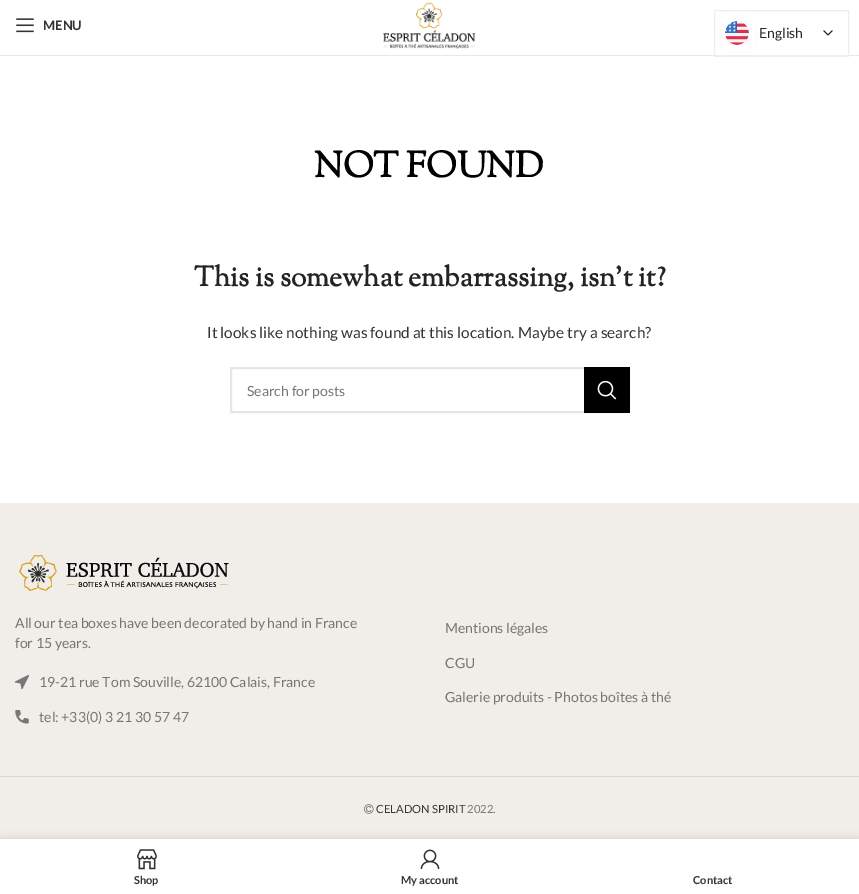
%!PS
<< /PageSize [859 894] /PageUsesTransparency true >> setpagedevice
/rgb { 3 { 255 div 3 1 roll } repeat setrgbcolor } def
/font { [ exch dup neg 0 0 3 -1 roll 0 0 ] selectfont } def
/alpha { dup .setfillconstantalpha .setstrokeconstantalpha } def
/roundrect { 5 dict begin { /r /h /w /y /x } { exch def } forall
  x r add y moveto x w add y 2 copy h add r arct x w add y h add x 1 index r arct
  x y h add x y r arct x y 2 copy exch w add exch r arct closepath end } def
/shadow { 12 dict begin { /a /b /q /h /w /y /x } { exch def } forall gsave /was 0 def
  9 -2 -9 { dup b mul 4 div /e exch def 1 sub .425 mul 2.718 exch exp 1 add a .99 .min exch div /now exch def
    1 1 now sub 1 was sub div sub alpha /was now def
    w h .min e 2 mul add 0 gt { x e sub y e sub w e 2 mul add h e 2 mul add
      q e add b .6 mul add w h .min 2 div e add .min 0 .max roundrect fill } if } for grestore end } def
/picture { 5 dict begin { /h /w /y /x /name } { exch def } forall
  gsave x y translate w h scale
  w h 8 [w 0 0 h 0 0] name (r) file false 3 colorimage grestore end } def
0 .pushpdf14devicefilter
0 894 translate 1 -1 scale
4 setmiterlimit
255 255 255 rgb
0 0 859 894 rectfill
232 232 232 rgb
0 55 859 1 rectfill
(img/1.rgb) 16 18 18 15 picture
(img/2.rgb) 383 2 93 47 picture
230 230 230 rgb
2 setlinewidth
231 368 398 44 rectstroke
0 0 0 rgb
584 367 46 46 rectfill
(img/3.rgb) 597 380 20 20 picture
241 238 233 rgb
0 503 859 336 rectfill
(img/4.rgb) 19 555 210 36 picture
(img/5.rgb) 15 675 14 14 picture
(img/6.rgb) 15 710 14 14 picture
215 213 208 rgb
0 776 859 1 rectfill
(img/7.rgb) 364 804 10 10 picture
238 238 238 rgb
727 23 24 24 12 6 0.8 shadow
255 255 255 rgb
723 19 32 32 rectfill
238 238 238 rgb
714 56 135 1 rectfill
1 setlinewidth
714.5 10.5 134 45 rectstroke
(img/8.rgb) 725 21 24 24 picture
(img/9.rgb) 823 30 10 6 picture
0 0 0 rgb
0 839 859 55 0 4.5 0.12 shadow
255 255 255 rgb
0 839 859 55 rectfill
(img/10.rgb) 137 849 20 21 picture
(img/11.rgb) 420 849 20 20 picture
/Lato-Bold 13 font
51 51 51 rgb
43 30 moveto (MENU) show
/SortsMillGoudy-Bold 36 font
0 0 0 rgb
314 177 moveto (NOT FOUND) show
/SortsMillGoudy-Bold 28 font
36 36 36 rgb
194 286 moveto (This is somewhat embarrassing, isn't it?) show
/Lato-Regular 15.4 font
51 51 51 rgb
207 338 moveto (It looks like nothing was found at this location. Maybe try a search?) show
/Lato-Regular 14 font
118 118 118 rgb
[
  [(Search for posts) 247 396]
  [(All our tea boxes have been decorated by hand in France) 15 628]
  [(for 15 years.) 15 648]
  [(19-21 rue Tom Souville, 62100 Calais, France) 39 687]
  [(tel: +33\(0\) 3 21 30 57 47) 39 722]
  [(Mentions légales) 445 633]
  [(CGU) 445 668]
  [(Galerie produits - Photos boîtes à thé) 445 702]
] { aload pop moveto show } forall
/Lato-Regular 11.25 font
51 51 51 rgb
376 813 moveto (CELADON SPIRIT) show
118 118 118 rgb
467 813 moveto (2022.) show
/Lato-Regular 14 font
36 36 36 rgb
759 38 moveto (English) show
/Lato-Bold 11 font
51 51 51 rgb
[
  [(Shop) 134 884]
  [(My account) 401 884]
  [(Contact) 693 884]
] { aload pop moveto show } forall
.poppdf14devicefilter showpage
